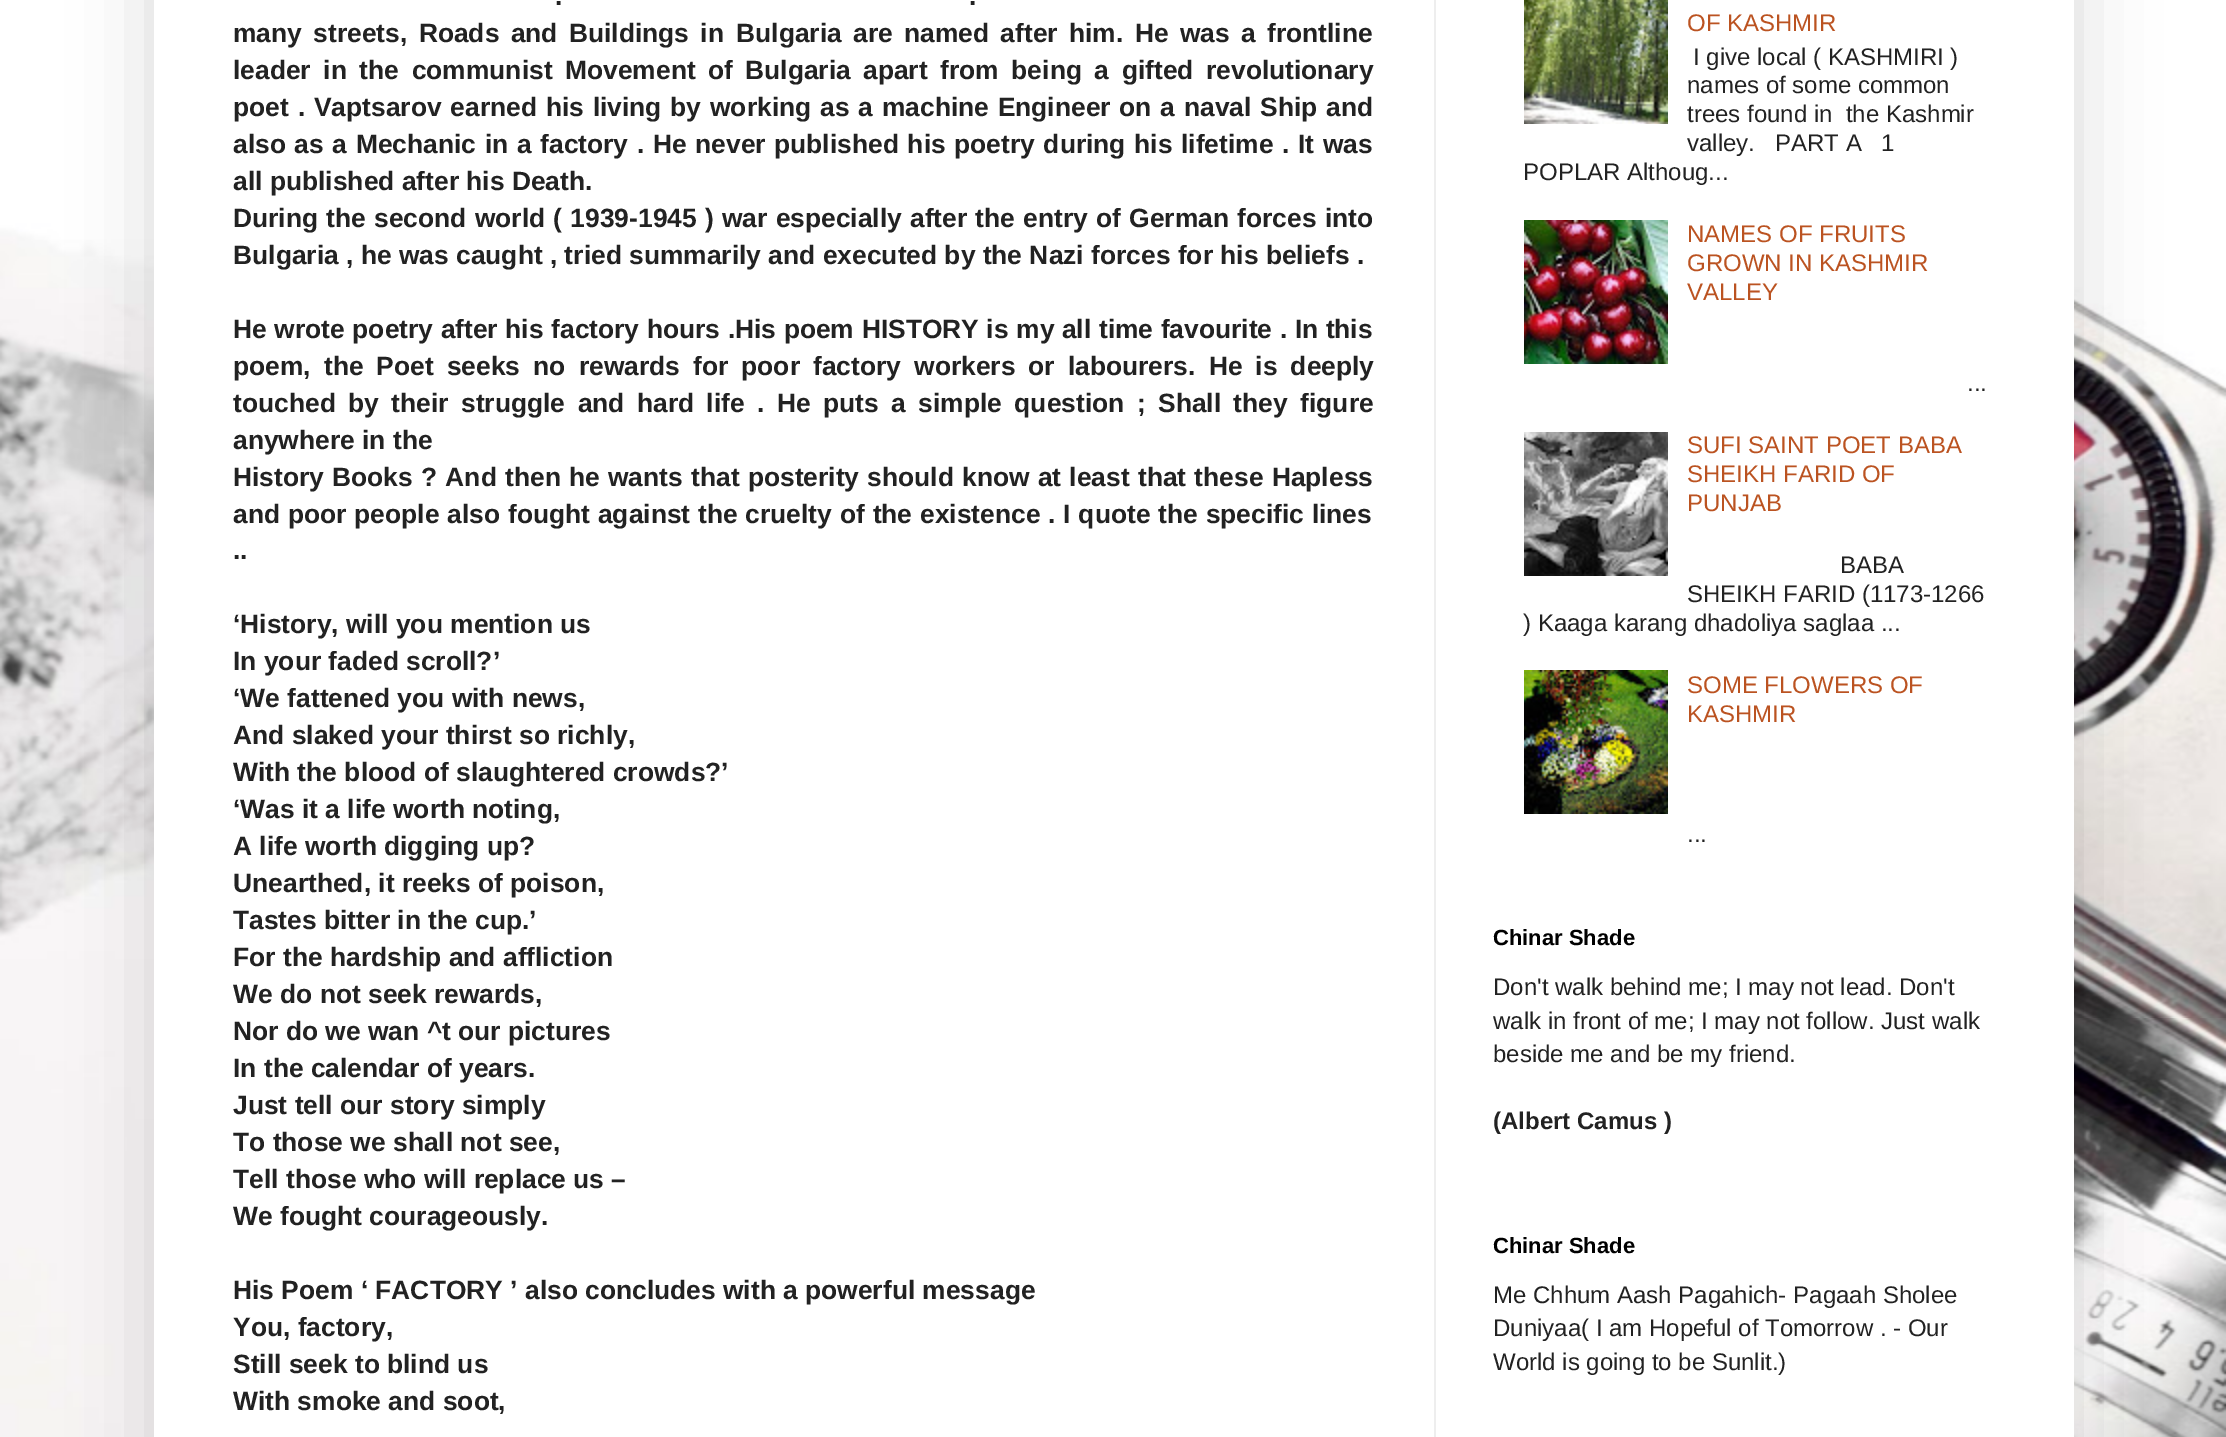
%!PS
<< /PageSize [2226 1437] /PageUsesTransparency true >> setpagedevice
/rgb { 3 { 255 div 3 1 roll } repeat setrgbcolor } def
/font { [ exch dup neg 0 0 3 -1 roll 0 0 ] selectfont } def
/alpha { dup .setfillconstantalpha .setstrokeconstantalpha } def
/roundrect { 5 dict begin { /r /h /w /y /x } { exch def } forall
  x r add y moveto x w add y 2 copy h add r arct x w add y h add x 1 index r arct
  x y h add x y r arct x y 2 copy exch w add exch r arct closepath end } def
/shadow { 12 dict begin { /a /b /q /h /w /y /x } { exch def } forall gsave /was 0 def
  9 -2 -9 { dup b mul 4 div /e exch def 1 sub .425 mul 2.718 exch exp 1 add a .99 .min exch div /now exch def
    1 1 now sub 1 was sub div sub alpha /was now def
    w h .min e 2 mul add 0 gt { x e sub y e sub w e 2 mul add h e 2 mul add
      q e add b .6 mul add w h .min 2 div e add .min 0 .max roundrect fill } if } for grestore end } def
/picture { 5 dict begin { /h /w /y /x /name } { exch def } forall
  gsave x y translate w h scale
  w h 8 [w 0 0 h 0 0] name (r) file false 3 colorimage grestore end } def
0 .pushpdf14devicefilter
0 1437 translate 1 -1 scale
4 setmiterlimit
255 255 255 rgb
0 0 2226 1437 rectfill
(img/1.rgb) 0 112 2226 1325 picture
0 0 0 rgb
154 -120 1920 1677 0 40 0.15 shadow
255 255 255 rgb
154 0 1920 1437 rectfill
238 238 238 rgb
1434 0 2 1437 rectfill
(img/2.rgb) 1524 0 144 124 picture
(img/3.rgb) 1524 220 144 144 picture
(img/4.rgb) 1524 432 144 144 picture
(img/5.rgb) 1524 670 144 144 picture
/LiberationSans-Bold 26.4 font
34 34 34 rgb
555 5 moveto 3 0 32 (.) widthshow
969 5 moveto 3 0 32 (.) widthshow
233 42 moveto 4 0 32 (many streets, Roads and Buildings in) widthshow
736 42 moveto (Bulgaria) show
853 42 moveto 4 0 32 (are named after him. He was a frontline) widthshow
233 79 moveto 5.25 0 32 (leader in the communist Movement of) widthshow
745 79 moveto (Bulgaria) show
863 79 moveto 5.25 0 32 (apart from being a gifted revolutionary) widthshow
233 116 moveto 1.5 0 32 (poet . Vaptsarov earned his living by working as a machine Engineer on a naval Ship and) widthshow
233 153 moveto 1.3 0 32 (also as a Mechanic in a factory . He never published his poetry during his lifetime . It was) widthshow
233 190 moveto (all published after his Death.) show
233 227 moveto 0.9 0 32 (During the second world \( 1939-1945 \) war especially after the entry of German forces into) widthshow
233 264 moveto (Bulgaria , he was caught , tried summarily and executed by the Nazi forces for his beliefs .) show
233 338 moveto 0.25 0 32 (He wrote poetry after his factory hours .His poem HISTORY is my all time favourite . In this) widthshow
233 375 moveto 5.75 0 32 (poem, the Poet seeks no rewards for poor factory workers or labourers. He is deeply) widthshow
233 412 moveto 5.1 0 32 (touched by their struggle and hard life . He puts a simple question ; Shall they figure) widthshow
233 449 moveto (anywhere in the) show
233 486 moveto 0.9 0 32 (History Books ? And then he wants that posterity should know at least that these Hapless) widthshow
233 523 moveto 0.5 0 32 (and poor people also fought against the cruelty of the existence . I quote the specific lines) widthshow
[
  [(..) 233 559]
  [(‘History, will you mention us) 233 633]
  [(In your faded scroll?’) 233 670]
  [(‘We fattened you with news,) 233 707]
  [(And slaked your thirst so richly,) 233 744]
  [(With the blood of slaughtered crowds?’) 233 781]
  [(‘Was it a life worth noting,) 233 818]
  [(A life worth digging up?) 233 855]
  [(Unearthed, it reeks of poison,) 233 892]
  [(Tastes bitter in the cup.’) 233 929]
  [(For the hardship and affliction) 233 966]
  [(We do not seek rewards,) 233 1003]
  [(Nor do we wan ^t our pictures) 233 1040]
  [(In the calendar of years.) 233 1077]
  [(Just tell our story simply) 233 1114]
  [(To those we shall not see,) 233 1151]
  [(Tell those who will replace us –) 233 1188]
  [(We fought courageously.) 233 1225]
  [(His Poem ‘ FACTORY ’ also concludes with a powerful message) 233 1299]
  [(You, factory,) 233 1336]
  [(Still seek to blind us) 233 1373]
  [(With smoke and soot,) 233 1410]
] { aload pop moveto show } forall
/LiberationSans-Regular 24 font
187 83 33 rgb
1687 31 moveto (OF KASHMIR) show
34 34 34 rgb
[
  [(I give local \( KASHMIRI \)) 1693 65]
  [(names of some common) 1687 93]
  [(trees found in  the Kashmir) 1687 122]
  [(valley.) 1687 151]
  [(PART A) 1775 151]
  [(1) 1881 151]
  [(POPLAR Althoug...) 1523 180]
] { aload pop moveto show } forall
187 83 33 rgb
[
  [(NAMES OF FRUITS) 1687 242]
  [(GROWN IN KASHMIR) 1687 271]
  [(VALLEY) 1687 300]
] { aload pop moveto show } forall
34 34 34 rgb
1967 391 moveto (...) show
187 83 33 rgb
[
  [(SUFI SAINT POET BABA) 1687 453]
  [(SHEIKH FARID OF) 1687 482]
  [(PUNJAB) 1687 511]
] { aload pop moveto show } forall
34 34 34 rgb
[
  [(BABA) 1840 573]
  [(SHEIKH FARID \(1173-1266) 1687 602]
  [(\) Kaaga karang dhadoliya saglaa ...) 1523 631]
] { aload pop moveto show } forall
187 83 33 rgb
1687 693 moveto (SOME FLOWERS OF) show
1687 722 moveto (KASHMIR) show
34 34 34 rgb
1687 842 moveto (...) show
/LiberationSans-Bold 22 font
0 0 0 rgb
1493 945 moveto (Chinar Shade) show
/LiberationSans-Regular 24 font
34 34 34 rgb
[
  [(Don't walk behind me; I may not lead. Don't) 1493 995]
  [(walk in front of me; I may not follow. Just walk) 1493 1029]
  [(beside me and be my friend.) 1493 1062]
] { aload pop moveto show } forall
/LiberationSans-Bold 24 font
1493 1129 moveto (\(Albert Camus \)) show
/LiberationSans-Bold 22 font
0 0 0 rgb
1493 1253 moveto (Chinar Shade) show
/LiberationSans-Regular 24 font
34 34 34 rgb
[
  [(Me Chhum Aash Pagahich- Pagaah Sholee) 1493 1303]
  [(Duniyaa\( I am Hopeful of Tomorrow . - Our) 1493 1336]
  [(World is going to be Sunlit.\)) 1493 1370]
] { aload pop moveto show } forall
.poppdf14devicefilter showpage
